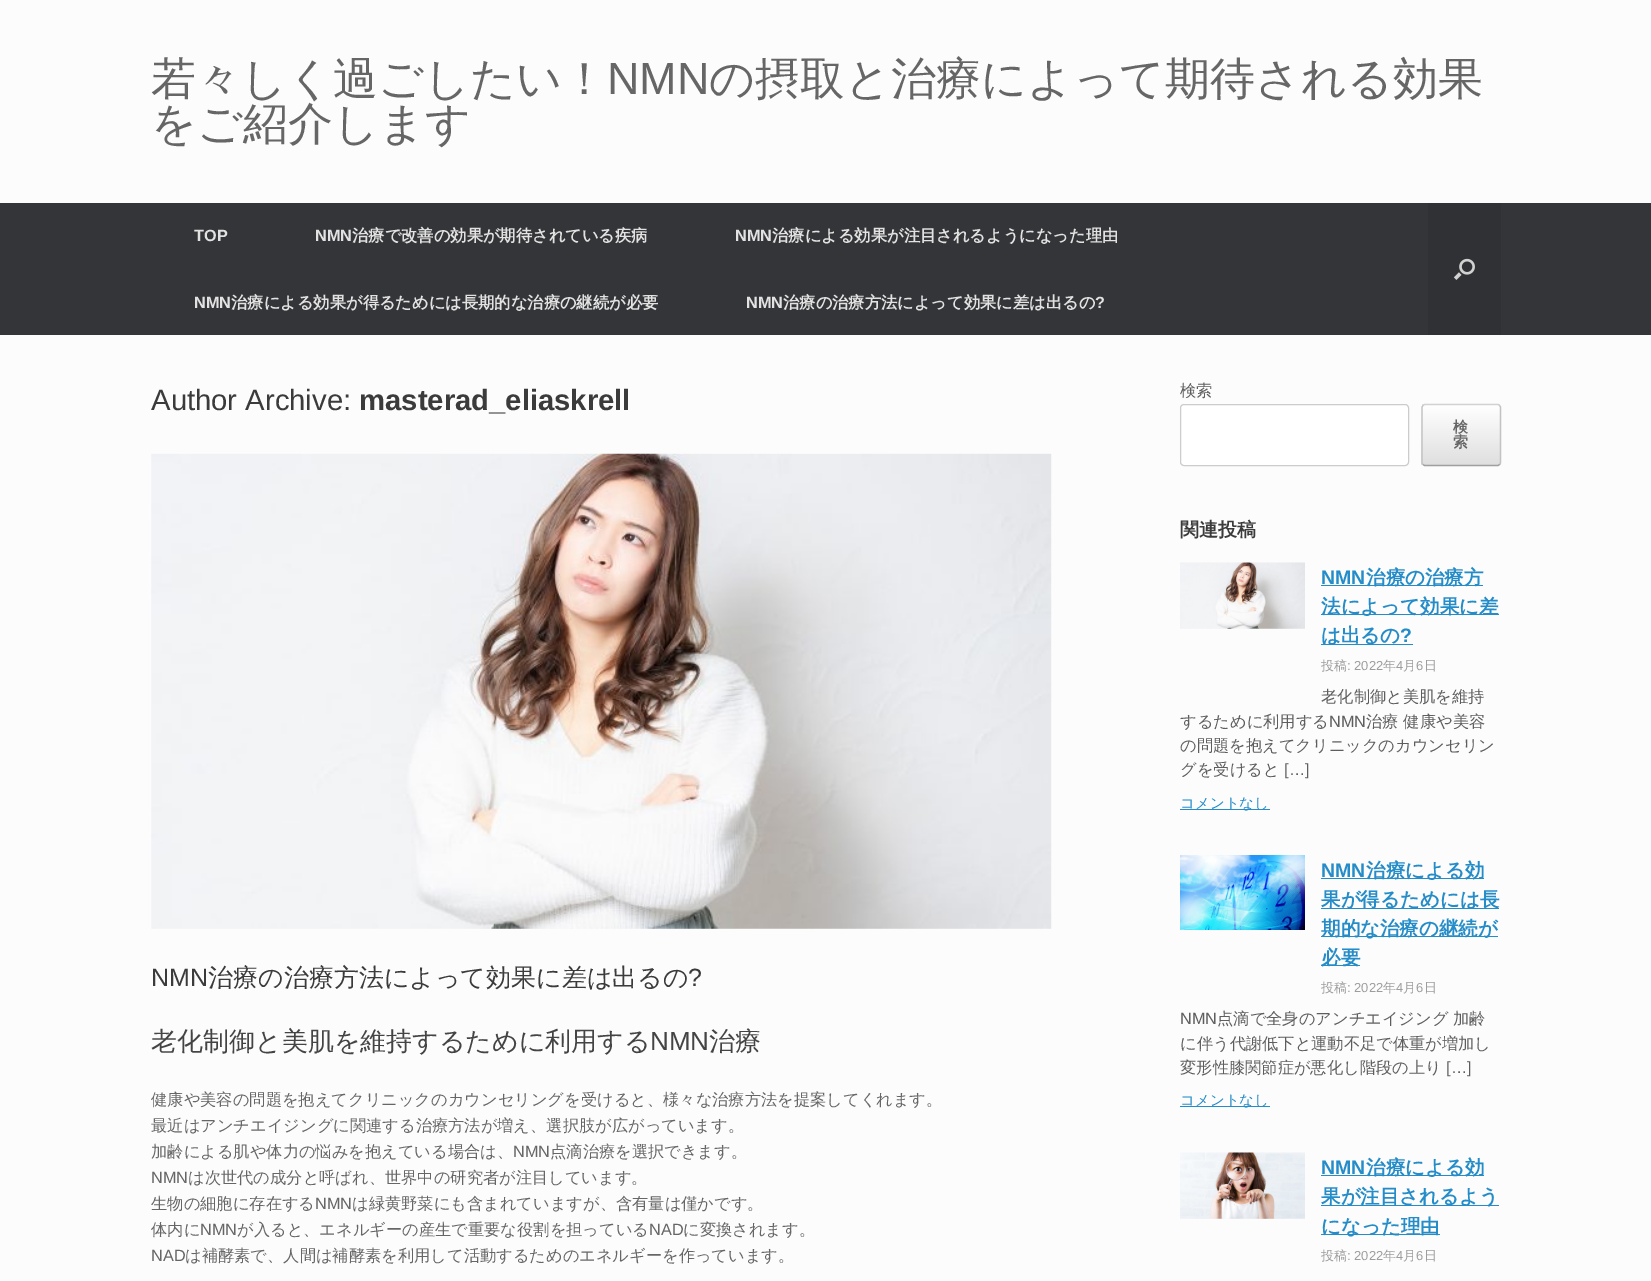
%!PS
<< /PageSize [1651 1281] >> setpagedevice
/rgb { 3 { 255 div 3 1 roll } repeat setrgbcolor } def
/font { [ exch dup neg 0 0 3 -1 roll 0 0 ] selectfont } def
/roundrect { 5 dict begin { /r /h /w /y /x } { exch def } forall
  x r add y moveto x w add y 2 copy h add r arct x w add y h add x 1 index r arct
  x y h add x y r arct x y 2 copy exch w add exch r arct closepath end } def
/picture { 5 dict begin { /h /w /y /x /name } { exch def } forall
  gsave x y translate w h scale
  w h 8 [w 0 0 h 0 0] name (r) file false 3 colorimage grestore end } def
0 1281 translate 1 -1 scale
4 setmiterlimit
252 252 252 rgb
0 0 1651 1281 rectfill
52 53 56 rgb
0 203 1651 132 rectfill
48 49 52 rgb
1428 203 73 132 rectfill
(img/1.rgb) 1453 258 22 22 picture
(img/2.rgb) 151 453 901 476 picture
255 255 255 rgb
1180.5 404.5 228 61 3.5 roundrect gsave fill grestore
204 204 204 rgb
stroke
gsave
1421 404 80 62 4 roundrect clip newpath
gsave 1421 404 moveto 1501 404 lineto 1501 405 lineto 1421 405 lineto closepath clip newpath
<< /ShadingType 2 /ColorSpace /DeviceRGB /Coords [1423 405 1423 345] /Extend [true true] /Function << /FunctionType 2 /Domain [0 1] /C0 [0.875 0.875 0.875] /C1 [1 1 1] /N 1 >> >> shfill grestore
gsave 1421 405 moveto 1501 405 lineto 1501 465 lineto 1421 465 lineto closepath clip newpath
<< /ShadingType 2 /ColorSpace /DeviceRGB /Coords [1423 465 1423 405] /Extend [true true] /Function << /FunctionType 2 /Domain [0 1] /C0 [0.875 0.875 0.875] /C1 [1 1 1] /N 1 >> >> shfill grestore
grestore
210 210 210 rgb
1.2 setlinewidth
1423 405.5 moveto 1424.5 404.5 lineto 1498 404.5 lineto 1499.5 405.5 lineto stroke
195 195 195 rgb
1499.5 405.5 moveto 1500.5 407 lineto 1500.5 463 lineto 1499.5 464.5 lineto stroke
159 159 159 rgb
1499.5 464.5 moveto 1498 465.5 lineto 1424.5 465.5 lineto 1423 464.5 lineto stroke
195 195 195 rgb
1423 464.5 moveto 1422 463 lineto 1422 407 lineto 1423 405.5 lineto stroke
(img/3.rgb) 1180 562 125 67 picture
[
  [1321 585 162 1 36 140 200]
  [1321 614 178 1 36 140 200]
  [1321 644 92 1 36 140 200]
  [1180 809 90 1 36 140 200]
] { aload pop rgb rectfill } forall
(img/4.rgb) 1180 855 125 75 picture
[
  [1321 878 163 1 36 140 200]
  [1321 908 178 1 36 140 200]
  [1321 936 177 1 36 140 200]
  [1321 965 39 1 36 140 200]
  [1180 1106 90 1 36 140 200]
] { aload pop rgb rectfill } forall
(img/5.rgb) 1180 1152 125 67 picture
[
  [1321 1175 163 1 36 140 200]
  [1321 1205 178 1 36 140 200]
  [1321 1234 119 1 36 140 200]
] { aload pop rgb rectfill } forall
/WenQuanYiZenHei-Medium 45 font
102 102 102 rgb
151 94 moveto (若々しく過ごしたい！) show
/LiberationSans-Regular 45 font
607 94 moveto (NMN) show
/WenQuanYiZenHei-Medium 45 font
709 94 moveto (の摂取と治療によって期待される効果) show
151 139 moveto (をご紹介します) show
/LiberationSans-Bold 16.25 font
226 226 226 rgb
194 241 moveto (TOP) show
315 241 moveto (NMN) show
/WenQuanYiZenHei-Bold 16.25 font
352 241 moveto (治療で改善の効果が期待されている疾病) show
/LiberationSans-Bold 16.25 font
735 241 moveto (NMN) show
/WenQuanYiZenHei-Bold 16.25 font
772 241 moveto (治療による効果が注目されるようになった理由) show
/LiberationSans-Bold 16.25 font
194 308 moveto (NMN) show
/WenQuanYiZenHei-Bold 16.25 font
231 308 moveto (治療による効果が得るためには長期的な治療の継続が必要) show
/LiberationSans-Bold 16.25 font
746 308 moveto (NMN) show
/WenQuanYiZenHei-Bold 16.25 font
783 308 moveto (治療の治療方法によって効果に差は出るの) show
/LiberationSans-Bold 16.25 font
1095 308 moveto (?) show
/LiberationSans-Regular 29.25 font
59 59 59 rgb
151 410 moveto (Author Archive:) show
/LiberationSans-Bold 29.25 font
359 410 moveto (masterad_eliaskrell) show
/LiberationSans-Regular 25 font
151 986 moveto (NMN) show
/WenQuanYiZenHei-Medium 25 font
208 986 moveto (治療の治療方法によって効果に差は出るの) show
/LiberationSans-Regular 25 font
688 986 moveto (?) show
/WenQuanYiZenHei-Medium 26 font
68 68 68 rgb
151 1050 moveto (老化制御と美肌を維持するために利用する) show
/LiberationSans-Regular 26 font
650 1050 moveto (NMN) show
/WenQuanYiZenHei-Medium 26 font
709 1050 moveto (治療) show
/WenQuanYiZenHei-Medium 16.25 font
102 102 102 rgb
[
  [(健康や美容の問題を抱えてクリニックのカウンセリングを受けると、様々な治療方法を提案してくれます。) 151 1105]
  [(最近はアンチエイジングに関連する治療方法が増え、選択肢が広がっています。) 151 1131]
  [(加齢による肌や体力の悩みを抱えている場合は、) 151 1157]
] { aload pop moveto show } forall
/LiberationSans-Regular 16.25 font
513 1157 moveto (NMN) show
/WenQuanYiZenHei-Medium 16.25 font
550 1157 moveto (点滴治療を選択できます。) show
/LiberationSans-Regular 16.25 font
151 1183 moveto (NMN) show
/WenQuanYiZenHei-Medium 16.25 font
188 1183 moveto (は次世代の成分と呼ばれ、世界中の研究者が注目しています。) show
151 1209 moveto (生物の細胞に存在する) show
/LiberationSans-Regular 16.25 font
315 1209 moveto (NMN) show
/WenQuanYiZenHei-Medium 16.25 font
352 1209 moveto (は緑黄野菜にも含まれていますが、含有量は僅かです。) show
151 1235 moveto (体内に) show
/LiberationSans-Regular 16.25 font
200 1235 moveto (NMN) show
/WenQuanYiZenHei-Medium 16.25 font
237 1235 moveto (が入ると、エネルギーの産生で重要な役割を担っている) show
/LiberationSans-Regular 16.25 font
649 1235 moveto (NAD) show
/WenQuanYiZenHei-Medium 16.25 font
683 1235 moveto (に変換されます。) show
/LiberationSans-Regular 16.25 font
151 1261 moveto (NAD) show
/WenQuanYiZenHei-Medium 16.25 font
185 1261 moveto (は補酵素で、人間は補酵素を利用して活動するためのエネルギーを作っています。) show
94 94 94 rgb
1180 396 moveto (検索) show
/WenQuanYiZenHei-Bold 15 font
102 102 102 rgb
1453 432 moveto (検) show
1453 447 moveto (索) show
/WenQuanYiZenHei-Bold 19 font
59 59 59 rgb
1180 536 moveto (関連投稿) show
/LiberationSans-Bold 19.5 font
36 140 200 rgb
1321 584 moveto (NMN) show
/WenQuanYiZenHei-Bold 19.5 font
[
  [(治療の治療方) 1366 584]
  [(法によって効果に差) 1321 613]
  [(は出るの) 1321 642]
] { aload pop moveto show } forall
/LiberationSans-Bold 19.5 font
1400 642 moveto (?) show
/WenQuanYiZenHei-Medium 13 font
157 157 157 rgb
1321 670 moveto (投稿) show
/LiberationSans-Regular 13 font
1347 670 moveto (: 2022) show
/WenQuanYiZenHei-Medium 13 font
1383 670 moveto (年) show
/LiberationSans-Regular 13 font
1396 670 moveto (4) show
/WenQuanYiZenHei-Medium 13 font
1403 670 moveto (月) show
/LiberationSans-Regular 13 font
1416 670 moveto (6) show
/WenQuanYiZenHei-Medium 13 font
1424 670 moveto (日) show
/WenQuanYiZenHei-Medium 16.25 font
94 94 94 rgb
1321 702 moveto (老化制御と美肌を維持) show
1180 727 moveto (するために利用する) show
/LiberationSans-Regular 16.25 font
1329 727 moveto (NMN) show
/WenQuanYiZenHei-Medium 16.25 font
[
  [(治療 健康や美容) 1366 727]
  [(の問題を抱えてクリニックのカウンセリン) 1180 751]
  [(グを受けると) 1180 775]
] { aload pop moveto show } forall
/LiberationSans-Regular 16.25 font
1284 775 moveto ([…]) show
/WenQuanYiZenHei-Medium 14.5 font
36 140 200 rgb
1180 808 moveto (コメントなし) show
/LiberationSans-Bold 19.5 font
1321 877 moveto (NMN) show
/WenQuanYiZenHei-Bold 19.5 font
[
  [(治療による効) 1366 877]
  [(果が得るためには長) 1321 906]
  [(期的な治療の継続が) 1321 935]
  [(必要) 1321 964]
] { aload pop moveto show } forall
/WenQuanYiZenHei-Medium 13 font
157 157 157 rgb
1321 992 moveto (投稿) show
/LiberationSans-Regular 13 font
1347 992 moveto (: 2022) show
/WenQuanYiZenHei-Medium 13 font
1383 992 moveto (年) show
/LiberationSans-Regular 13 font
1396 992 moveto (4) show
/WenQuanYiZenHei-Medium 13 font
1403 992 moveto (月) show
/LiberationSans-Regular 13 font
1416 992 moveto (6) show
/WenQuanYiZenHei-Medium 13 font
1424 992 moveto (日) show
/LiberationSans-Regular 16.25 font
94 94 94 rgb
1180 1024 moveto (NMN) show
/WenQuanYiZenHei-Medium 16.25 font
[
  [(点滴で全身のアンチエイジング 加齢) 1217 1024]
  [(に伴う代謝低下と運動不足で体重が増加し) 1180 1049]
  [(変形性膝関節症が悪化し階段の上り) 1180 1073]
] { aload pop moveto show } forall
/LiberationSans-Regular 16.25 font
1446 1073 moveto ([…]) show
/WenQuanYiZenHei-Medium 14.5 font
36 140 200 rgb
1180 1105 moveto (コメントなし) show
/LiberationSans-Bold 19.5 font
1321 1174 moveto (NMN) show
/WenQuanYiZenHei-Bold 19.5 font
[
  [(治療による効) 1366 1174]
  [(果が注目されるよう) 1321 1203]
  [(になった理由) 1321 1233]
] { aload pop moveto show } forall
/WenQuanYiZenHei-Medium 13 font
157 157 157 rgb
1321 1260 moveto (投稿) show
/LiberationSans-Regular 13 font
1347 1260 moveto (: 2022) show
/WenQuanYiZenHei-Medium 13 font
1383 1260 moveto (年) show
/LiberationSans-Regular 13 font
1396 1260 moveto (4) show
/WenQuanYiZenHei-Medium 13 font
1403 1260 moveto (月) show
/LiberationSans-Regular 13 font
1416 1260 moveto (6) show
/WenQuanYiZenHei-Medium 13 font
1424 1260 moveto (日) show
showpage
